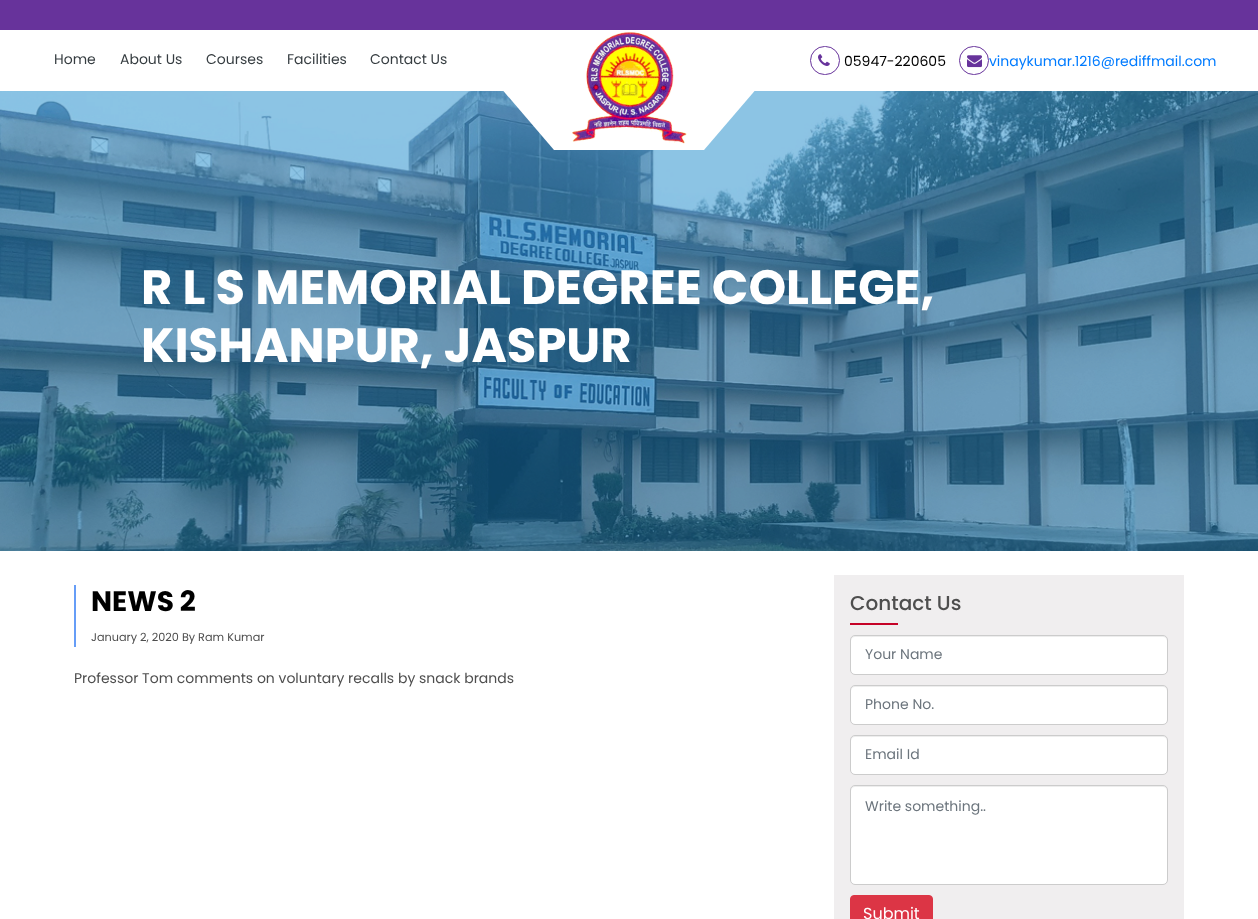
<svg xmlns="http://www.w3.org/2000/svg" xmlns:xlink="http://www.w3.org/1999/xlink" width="1258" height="919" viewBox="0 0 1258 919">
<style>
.cls-1{font:14px Poppins;fill:#363d41}
.cls-2{font:14px Poppins;fill:#000000}
.cls-3{font:14px Poppins;fill:#007bff}
.cls-4{font:bold 48px Poppins;fill:#ffffff}
.cls-5{font:bold 28px Poppins;fill:#000000}
.cls-6{font:11.25px Poppins;fill:#4e4e4e}
.cls-7{font:14px Poppins;fill:#4e4e4e}
.cls-8{font:500 20px Poppins;fill:#4e4e4e}
.cls-9{font:14px Poppins;fill:#6c757d}
.cls-10{font:16px Poppins;fill:#ffffff}
</style>
<rect width="100%" height="100%" fill="#ffffff"/>
<rect fill="#67339b" x="0" y="0" width="1258" height="30"/>
<image xlink:href="image3.png" x="0" y="91" width="1258" height="460"/>
<path fill="#ffffff" d="M464 45H794L704 150H554Z"/>
<image xlink:href="image0.png" x="572" y="31" width="115" height="113"/>
<rect fill="none" stroke="#67339b" x="810.5" y="46.5" width="29" height="28" rx="14"/>
<image xlink:href="image1.png" x="818" y="54" width="12" height="12"/>
<rect fill="none" stroke="#67339b" x="959.5" y="46.5" width="29" height="28" rx="14"/>
<image xlink:href="image2.png" x="967" y="55" width="15" height="13"/>
<rect fill="#669df7" x="74" y="585" width="2" height="62"/>
<rect fill="#f0eeef" x="834" y="575" width="350" height="344"/>
<rect fill="#c50227" x="850" y="623" width="48" height="2"/>
<rect fill="#ffffff" x="851" y="636" width="316" height="38" rx="4"/>
<path fill="#000000" fill-opacity="0.07" d="M855 637H1163C1165 637 1167 639 1167 641V640C1167 638 1165 636 1163 636H855C853 636 851 638 851 640V641C851 639 853 637 855 637Z"/>
<rect fill="none" stroke="#cccccc" x="850.5" y="635.5" width="317" height="39" rx="4.5"/>
<rect fill="#ffffff" x="851" y="686" width="316" height="38" rx="4"/>
<path fill="#000000" fill-opacity="0.07" d="M855 687H1163C1165 687 1167 689 1167 691V690C1167 688 1165 686 1163 686H855C853 686 851 688 851 690V691C851 689 853 687 855 687Z"/>
<rect fill="none" stroke="#cccccc" x="850.5" y="685.5" width="317" height="39" rx="4.5"/>
<rect fill="#ffffff" x="851" y="736" width="316" height="38" rx="4"/>
<path fill="#000000" fill-opacity="0.07" d="M855 737H1163C1165 737 1167 739 1167 741V740C1167 738 1165 736 1163 736H855C853 736 851 738 851 740V741C851 739 853 737 855 737Z"/>
<rect fill="none" stroke="#cccccc" x="850.5" y="735.5" width="317" height="39" rx="4.5"/>
<rect fill="#ffffff" x="851" y="786" width="316" height="98" rx="4"/>
<path fill="#000000" fill-opacity="0.07" d="M855 787H1163C1165 787 1167 789 1167 791V790C1167 788 1165 786 1163 786H855C853 786 851 788 851 790V791C851 789 853 787 855 787Z"/>
<rect fill="none" stroke="#cccccc" x="850.5" y="785.5" width="317" height="99" rx="4.5"/>
<rect fill="#dc3545" stroke="#dc3545" x="850.5" y="895.5" width="82" height="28" rx="3.5"/>
<text class="cls-1" x="54" y="64">Home</text>
<text class="cls-1" x="120" y="64">About Us</text>
<text class="cls-1" x="206" y="64">Courses</text>
<text class="cls-1" x="287" y="64">Facilities</text>
<text class="cls-1" x="370" y="64">Contact Us</text>
<text class="cls-2" x="844" y="66">05947-220605</text>
<text class="cls-3" x="989" y="66">vinaykumar.1216@rediffmail.com</text>
<text class="cls-4"><tspan x="141" y="304">R L S MEMORIAL DEGREE COLLEGE,</tspan><tspan x="141" y="362">KISHANPUR, JASPUR</tspan></text>
<text class="cls-5" x="91" y="611">NEWS 2</text>
<text class="cls-6" x="91" y="641">January 2, 2020 By Ram Kumar</text>
<text class="cls-7" x="74" y="683">Professor Tom comments on voluntary recalls by snack brands</text>
<text class="cls-8" x="850" y="610">Contact Us</text>
<text class="cls-9" x="865" y="659">Your Name</text>
<text class="cls-9" x="865" y="709">Phone No.</text>
<text class="cls-9" x="865" y="759">Email Id</text>
<text class="cls-9" x="865" y="811">Write something..</text>
<text class="cls-10" x="863" y="919">Submit</text>
</svg>
